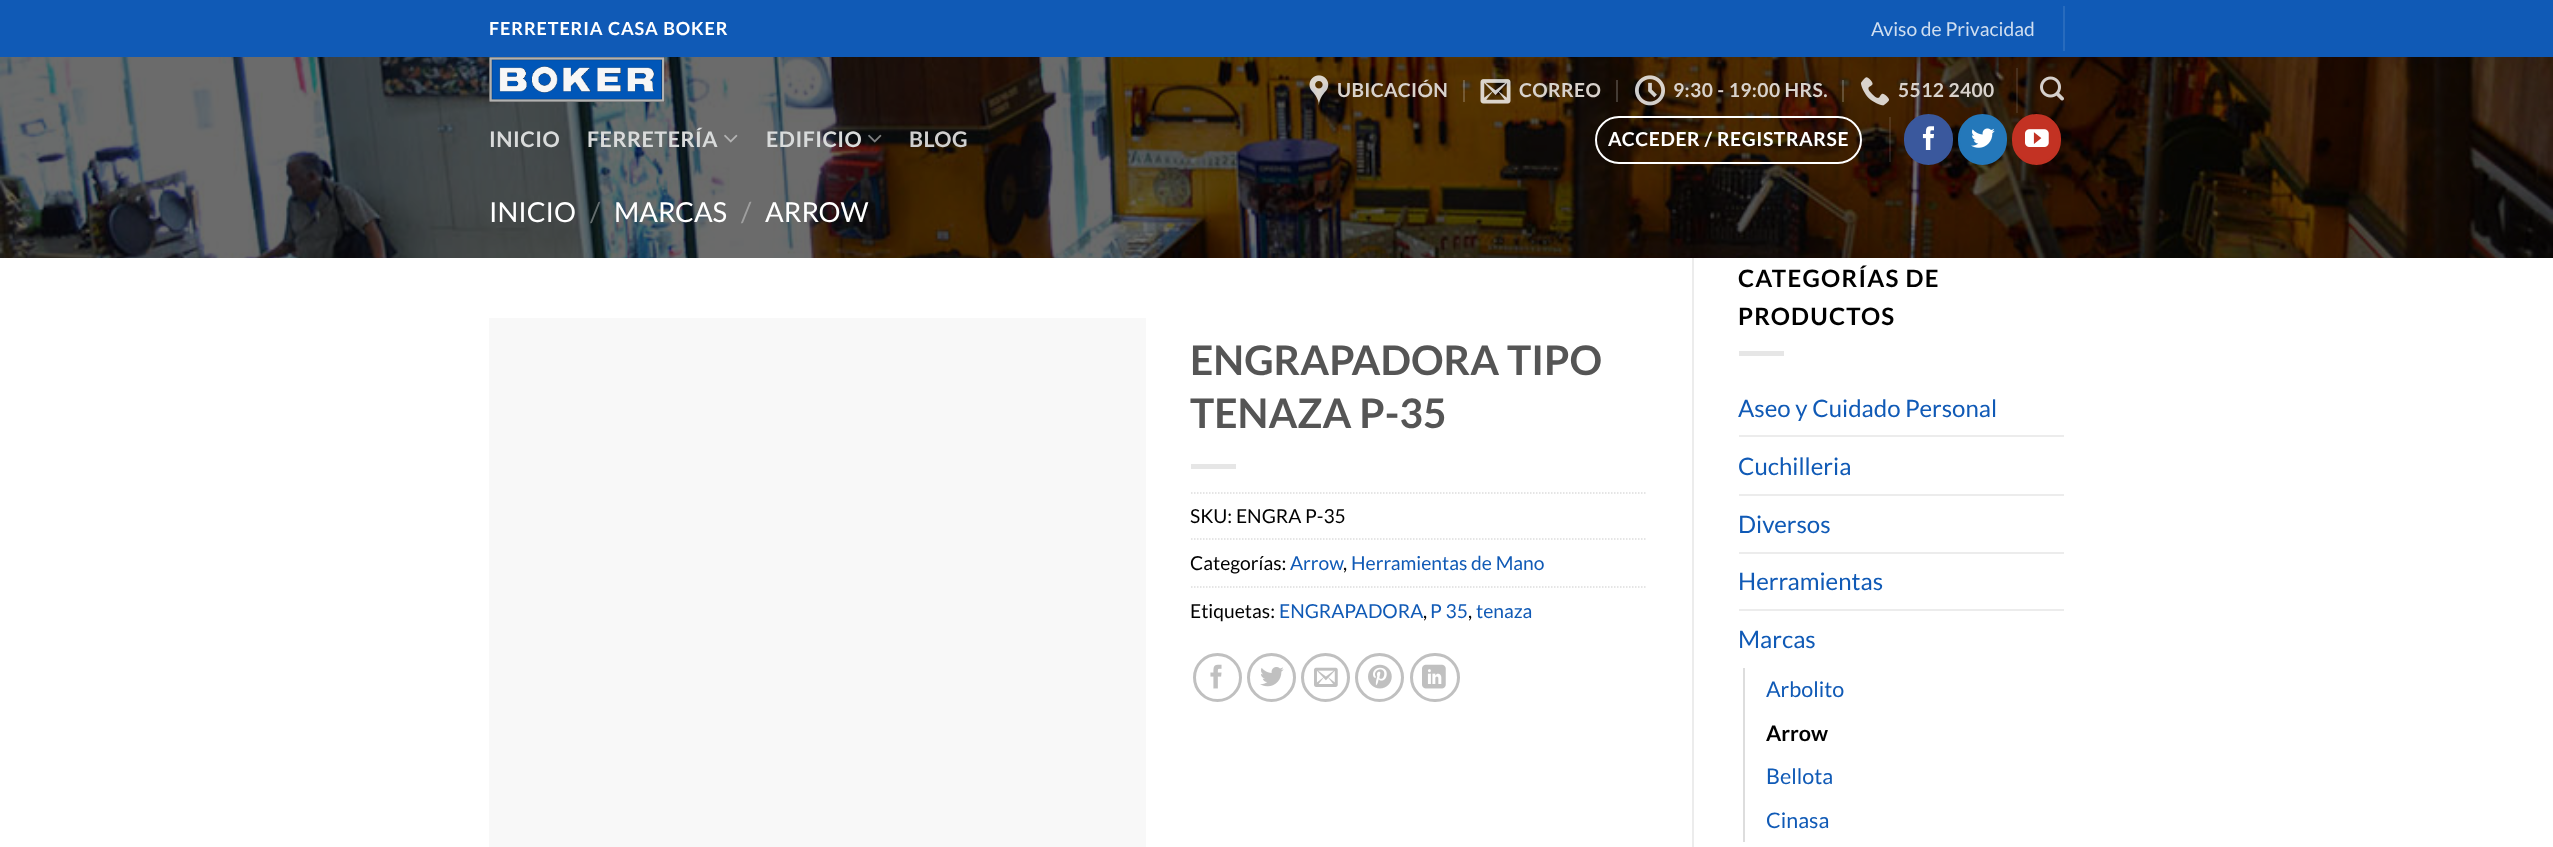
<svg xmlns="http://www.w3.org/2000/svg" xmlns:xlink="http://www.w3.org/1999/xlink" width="2553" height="847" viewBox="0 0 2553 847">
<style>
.cls-1{font:bold 18px Lato;letter-spacing:0.9px;fill:#ffffff}
.cls-2{font:19.25px Lato;fill:#cfdef0}
.cls-3{font:bold 19.25px Lato;letter-spacing:0.4px;fill:#d8d2cc}
.cls-4{font:bold 21.5px Lato;letter-spacing:0.5px;fill:#d9dbdb}
.cls-5{font:bold 21.5px Lato;letter-spacing:0.5px;fill:#d0cfce}
.cls-6{font:bold 19.25px Lato;letter-spacing:0.6px;fill:#ffffff}
.cls-7{font:27.5px Lato;fill:#ffffff}
.cls-8{font:27.5px Lato;fill:#646d6e}
.cls-9{font:27.5px Lato;fill:#9f9f9f}
.cls-10{font:bold 40.75px Lato;fill:#555555}
.cls-11{font:19.25px Lato;fill:#000000}
.cls-12{font:19.25px Lato;fill:#105ab6}
.cls-13{font:bold 24px Lato;letter-spacing:1.25px;fill:#000000}
.cls-14{font:24px Lato;fill:#105ab6}
.cls-15{font:21.5px Lato;fill:#105ab6}
.cls-16{font:bold 21.5px Lato;fill:#000000}
</style>
<rect width="100%" height="100%" fill="#ffffff"/>
<rect fill="#105ab6" x="0" y="0" width="2553" height="57"/>
<rect fill="#286bbd" x="2063" y="6" width="2" height="45"/>
<image xlink:href="image11.png" x="0" y="57" width="2553" height="201"/>
<image xlink:href="image0.png" x="489" y="57" width="176" height="45"/>
<image xlink:href="image1.png" x="1309" y="75" width="20" height="30"/>
<rect fill="#ffffff" fill-opacity="0.2" x="1463" y="80" width="2" height="22"/>
<image xlink:href="image2.png" x="1480" y="79" width="31" height="25"/>
<rect fill="#ffffff" fill-opacity="0.2" x="1616" y="80" width="2" height="22"/>
<image xlink:href="image3.png" x="1635" y="75" width="30" height="31"/>
<rect fill="#ffffff" fill-opacity="0.2" x="1842" y="80" width="2" height="22"/>
<image xlink:href="image4.png" x="1861" y="77" width="28" height="29"/>
<rect fill="#ffffff" fill-opacity="0.1" x="2016" y="68" width="2" height="45"/>
<image xlink:href="image5.png" x="2040" y="76" width="24" height="25"/>
<image xlink:href="image6.png" x="724" y="134" width="14" height="9"/>
<image xlink:href="image7.png" x="868" y="134" width="14" height="9"/>
<rect fill="none" stroke="#ffffff" stroke-width="2" x="1596" y="117" width="265" height="46" rx="23"/>
<rect fill="#ffffff" fill-opacity="0.1" x="1889" y="117" width="2" height="45"/>
<rect fill="#3a589d" stroke="#3a589d" stroke-width="2" x="1905" y="115" width="47" height="49" rx="23.5"/>
<image xlink:href="image8.png" x="1922" y="126" width="12" height="24"/>
<rect fill="#2478ba" stroke="#2478ba" stroke-width="2" x="1959" y="115" width="47" height="49" rx="23.5"/>
<image xlink:href="image9.png" x="1971" y="128" width="24" height="20"/>
<rect fill="#c33223" stroke="#c33223" stroke-width="2" x="2013" y="115" width="47" height="49" rx="23.5"/>
<image xlink:href="image10.png" x="2025" y="129" width="24" height="18"/>
<rect fill="#ececec" x="1692" y="258" width="2" height="589"/>
<rect fill="#f8f8f8" x="489" y="318" width="657" height="529"/>
<rect fill="#e6e6e6" x="1191" y="464" width="45" height="5"/>
<path fill="none" stroke="#dddddd" stroke-width="1.5" stroke-dasharray="1.5 1.5" d="M1191 493H1647"/>
<path fill="none" stroke="#dddddd" stroke-width="1.5" stroke-dasharray="1.5 1.5" d="M1191 539H1647"/>
<path fill="none" stroke="#dddddd" stroke-width="1.5" stroke-dasharray="1.5 1.5" d="M1191 587H1647"/>
<circle fill="none" stroke="#c0c0c0" stroke-width="3" cx="1217.5" cy="677.5" r="23"/>
<image xlink:href="image12.png" x="1210" y="664" width="12" height="25"/>
<circle fill="none" stroke="#c0c0c0" stroke-width="3" cx="1271.5" cy="677.5" r="23"/>
<image xlink:href="image13.png" x="1260" y="667" width="24" height="20"/>
<circle fill="none" stroke="#c0c0c0" stroke-width="3" cx="1325.5" cy="677.5" r="23"/>
<image xlink:href="image14.png" x="1314" y="667" width="24" height="20"/>
<circle fill="none" stroke="#c0c0c0" stroke-width="3" cx="1379.5" cy="677.5" r="23"/>
<image xlink:href="image15.png" x="1368" y="664" width="24" height="25"/>
<rect fill="none" stroke="#c0c0c0" stroke-width="3" x="1411.5" y="654.5" width="47" height="46" rx="23"/>
<image xlink:href="image16.png" x="1422" y="664" width="24" height="25"/>
<rect fill="#e6e6e6" x="1739" y="351" width="45" height="5"/>
<rect fill="#ececec" x="1739" y="435" width="325" height="2"/>
<rect fill="#ececec" x="1739" y="494" width="325" height="2"/>
<rect fill="#ececec" x="1739" y="552" width="325" height="2"/>
<rect fill="#ececec" x="1739" y="609" width="325" height="2"/>
<rect fill="#dddddd" x="1743" y="668" width="2" height="174"/>
<text class="cls-1" x="489" y="35">FERRETERIA CASA BOKER</text>
<text class="cls-2" x="1871" y="36">Aviso de Privacidad</text>
<text class="cls-3" x="1337" y="97">UBICACIÓN</text>
<text class="cls-3" x="1519" y="97">CORREO</text>
<text class="cls-3" x="1673" y="97">9:30 - 19:00 HRS.</text>
<text class="cls-3" x="1898" y="97">5512 2400</text>
<text class="cls-4" x="489" y="147">INICIO</text>
<text class="cls-4" x="587" y="147">FERRETERÍA</text>
<text class="cls-4" x="766" y="147">EDIFICIO</text>
<text class="cls-5" x="909" y="147">BLOG</text>
<text class="cls-6" x="1608" y="146">ACCEDER / REGISTRARSE</text>
<text class="cls-7" x="489" y="222">INICIO</text>
<text class="cls-8" x="590" y="222">/</text>
<text class="cls-7" x="614" y="222">MARCAS</text>
<text class="cls-9" x="741" y="222">/</text>
<text class="cls-7" x="765" y="222">ARROW</text>
<text class="cls-10"><tspan x="1190" y="375">ENGRAPADORA TIPO</tspan><tspan x="1190" y="428">TENAZA P-35</tspan></text>
<text class="cls-11" x="1190" y="523">SKU: ENGRA P-35</text>
<text class="cls-11" x="1190" y="570">Categorías:</text>
<text class="cls-12" x="1290" y="570">Arrow</text>
<text class="cls-11" x="1343" y="570">,</text>
<text class="cls-12" x="1351" y="570">Herramientas de Mano</text>
<text class="cls-11" x="1190" y="618">Etiquetas:</text>
<text class="cls-12" x="1279" y="618">ENGRAPADORA</text>
<text class="cls-11" x="1423" y="618">,</text>
<text class="cls-12" x="1430" y="618">P 35</text>
<text class="cls-11" x="1468" y="618">,</text>
<text class="cls-12" x="1476" y="618">tenaza</text>
<text class="cls-13"><tspan x="1738" y="287">CATEGORÍAS DE</tspan><tspan x="1738" y="325">PRODUCTOS</tspan></text>
<text class="cls-14" x="1738" y="417">Aseo y Cuidado Personal</text>
<text class="cls-14" x="1738" y="475">Cuchilleria</text>
<text class="cls-14" x="1738" y="533">Diversos</text>
<text class="cls-14" x="1738" y="590">Herramientas</text>
<text class="cls-14" x="1738" y="648">Marcas</text>
<text class="cls-15" x="1766" y="697">Arbolito</text>
<text class="cls-16" x="1766" y="741">Arrow</text>
<text class="cls-15" x="1766" y="784">Bellota</text>
<text class="cls-15" x="1766" y="828">Cinasa</text>
</svg>
